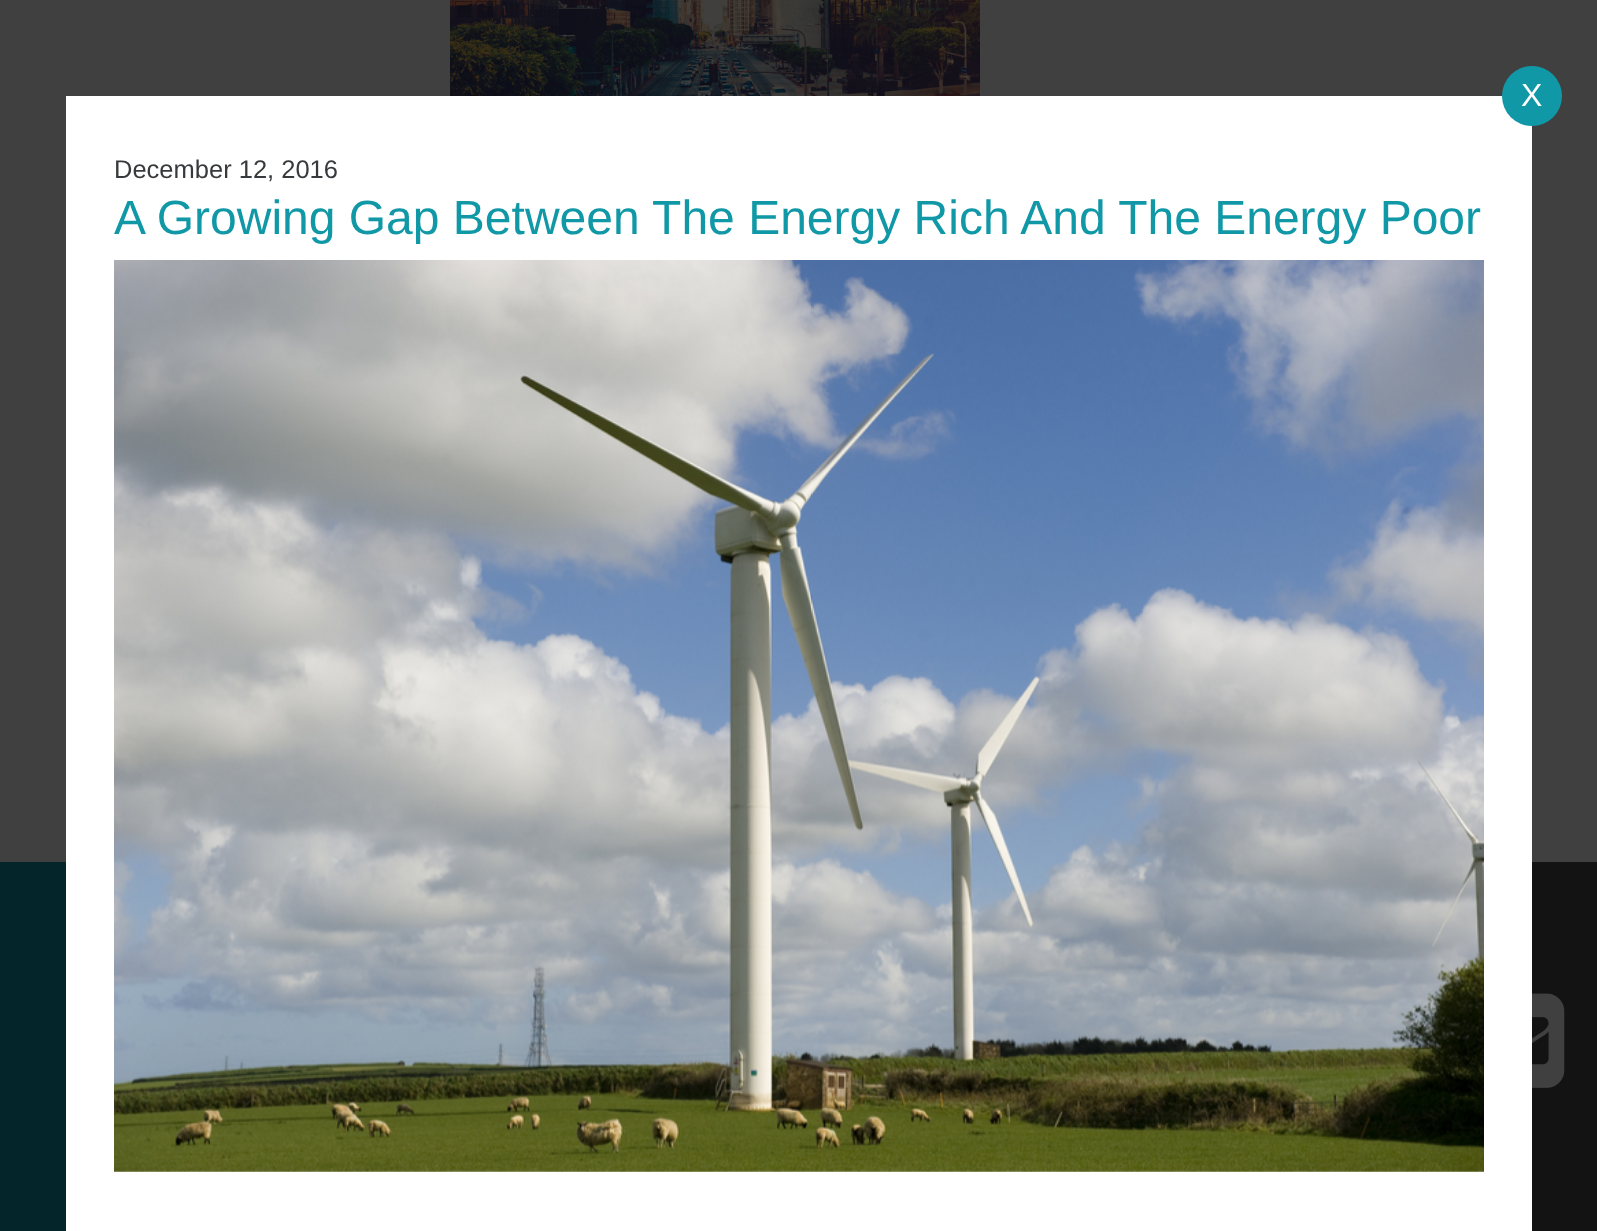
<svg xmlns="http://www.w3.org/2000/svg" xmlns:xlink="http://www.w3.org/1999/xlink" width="1597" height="1231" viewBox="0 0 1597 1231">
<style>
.cls-1{font:32px Liberation Sans;fill:#ffffff}
.cls-2{font:25.5px Liberation Sans;fill:#373a3c}
.cls-3{font:48px Liberation Sans;fill:#1198a7}
</style>
<rect width="100%" height="100%" fill="#404040"/>
<image xlink:href="image0.png" x="450" y="0" width="530" height="96"/>
<rect fill="#ffffff" x="66" y="96" width="1466" height="1135"/>
<circle fill="#1198a7" cx="1532" cy="96" r="30"/>
<image xlink:href="image1.png" x="114" y="260" width="1370" height="912"/>
<rect fill="#131314" x="1532" y="862" width="65" height="369"/>
<rect fill="#04262a" x="0" y="862" width="66" height="369"/>
<image xlink:href="image2.png" x="1532" y="993" width="33" height="95"/>
<text class="cls-1" x="1521" y="106">X</text>
<text class="cls-2" x="114" y="178">December 12, 2016</text>
<text class="cls-3" x="114" y="234">A Growing Gap Between The Energy Rich And The Energy Poor</text>
</svg>
